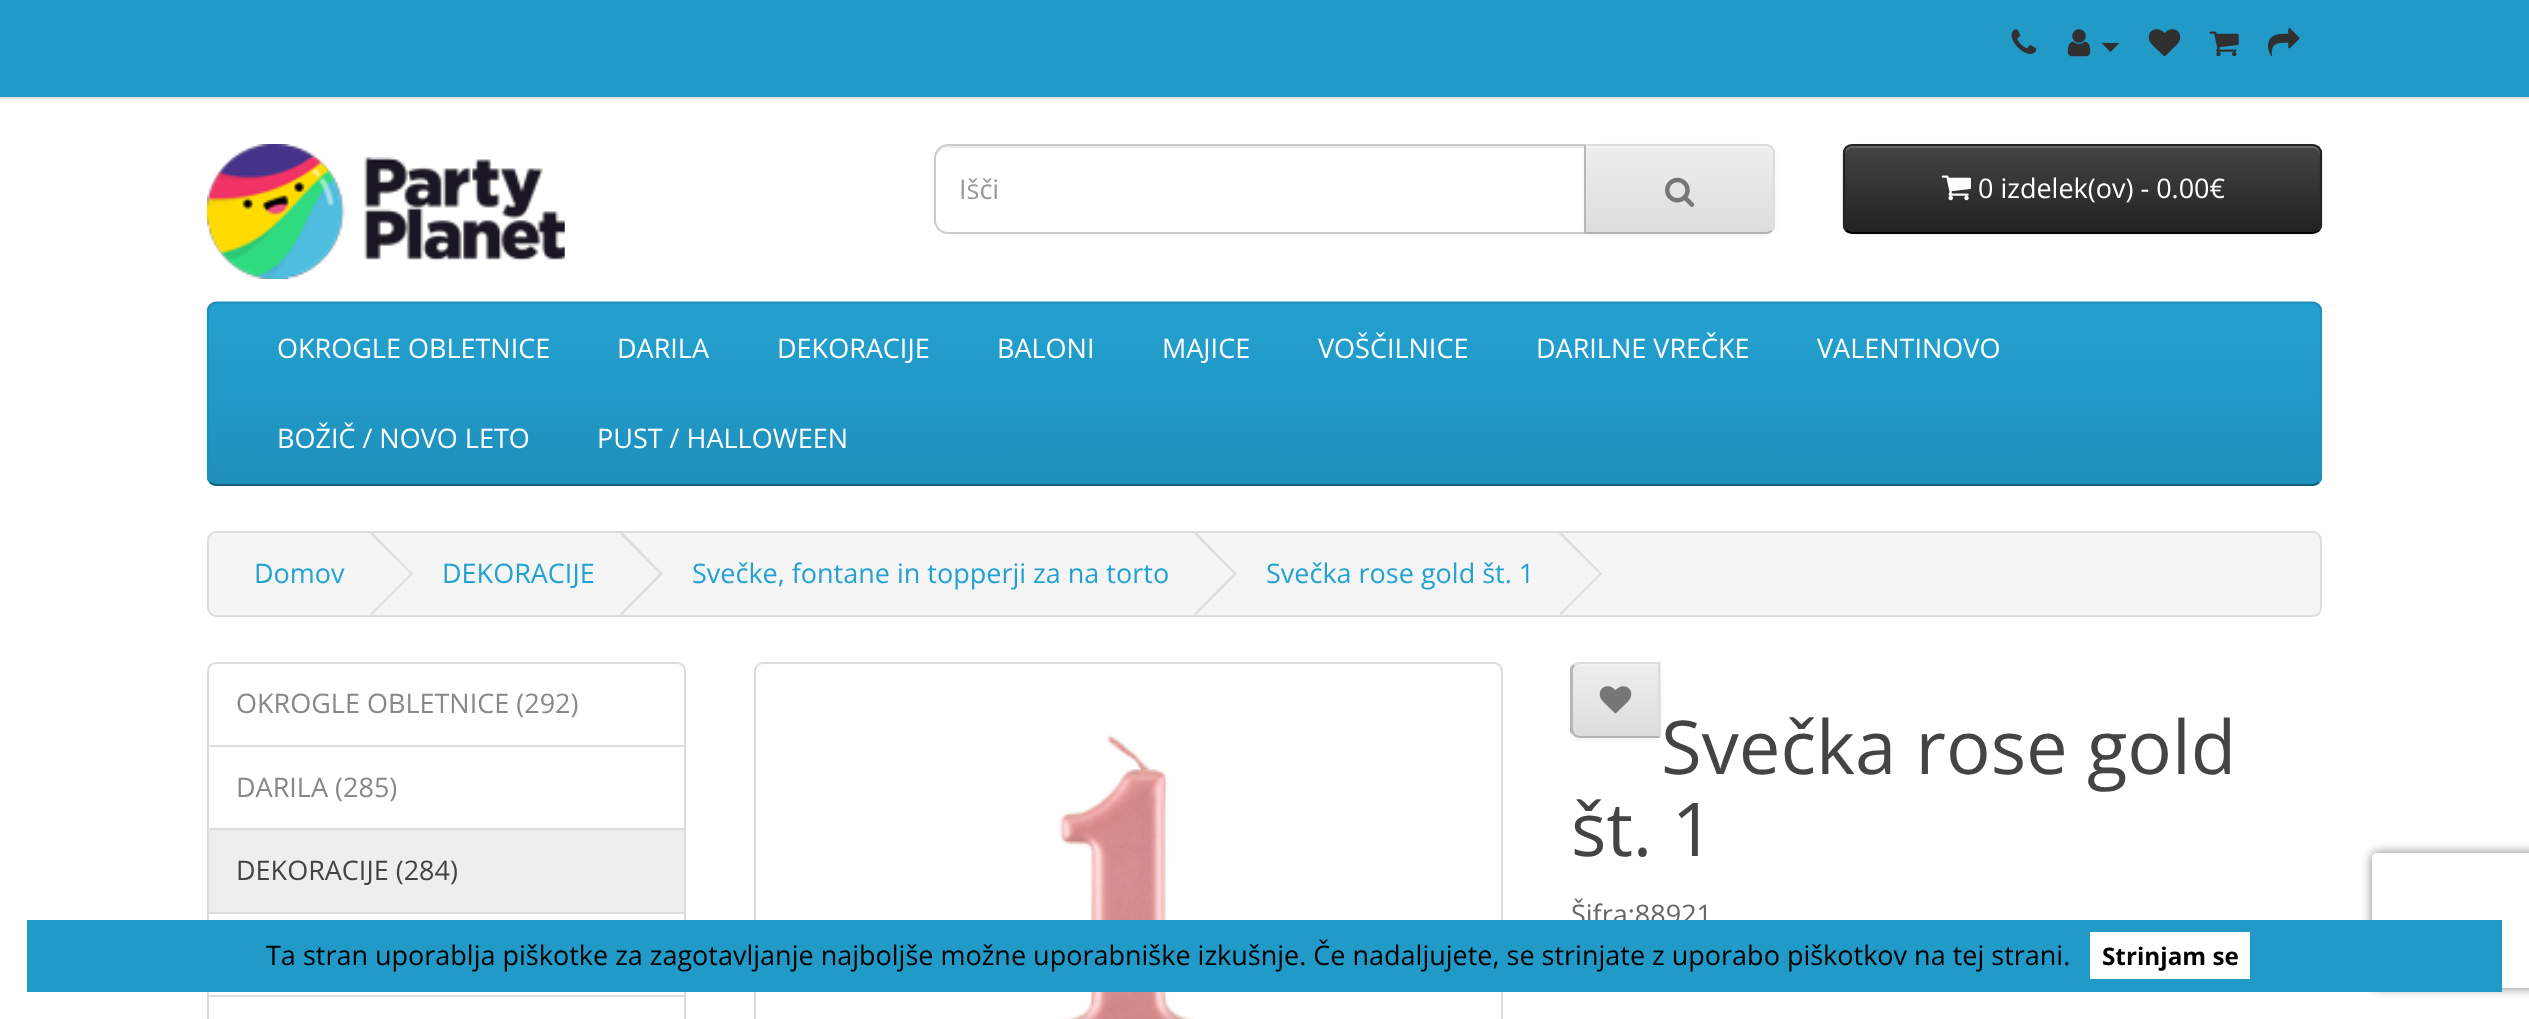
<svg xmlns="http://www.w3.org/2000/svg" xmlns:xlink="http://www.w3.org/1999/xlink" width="2529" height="1019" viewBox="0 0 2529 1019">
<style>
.cls-1{font:27px Open Sans;fill:#999999}
.cls-2{font:27px Open Sans;fill:#ffffff}
.cls-3{font:27px Open Sans;fill:#23a1d1}
.cls-4{font:27px Open Sans;fill:#888888}
.cls-5{font:27px Open Sans;fill:#444444}
.cls-6{font:74.25px Open Sans;fill:#444444}
.cls-7{font:27px Open Sans;fill:#666666}
.cls-8{font:27px Open Sans;fill:#000000}
.cls-9{font:bold 24.25px Open Sans;fill:#000000}
</style>
<defs>
<clipPath id="clip1"><path d="M1584 144H1766C1771 144 1775 148 1775 153V225C1775 230 1771 234 1766 234H1584Z"/></clipPath>
<linearGradient id="g1" gradientUnits="userSpaceOnUse" x1="1680" y1="146" x2="1680" y2="232"><stop offset="0" stop-color="#eeeeee"/><stop offset="1" stop-color="#dddddd"/></linearGradient>
<clipPath id="clip2"><rect x="1843" y="144" width="479" height="90" rx="9"/></clipPath>
<linearGradient id="g2" gradientUnits="userSpaceOnUse" x1="2082" y1="146" x2="2082" y2="232"><stop offset="0" stop-color="#444444"/><stop offset="1" stop-color="#222222"/></linearGradient>
<clipPath id="clip3"><rect x="207" y="302" width="2115" height="184" rx="9"/></clipPath>
<linearGradient id="g3" gradientUnits="userSpaceOnUse" x1="1265" y1="304" x2="1265" y2="484"><stop offset="0" stop-color="#23a1d1"/><stop offset="1" stop-color="#1f90bb"/></linearGradient>
<clipPath id="clip4"><path d="M1580 662H1661V738H1580C1575 738 1571 734 1571 729V671C1571 666 1575 662 1580 662Z"/></clipPath>
<linearGradient id="g4" gradientUnits="userSpaceOnUse" x1="1616" y1="664" x2="1616" y2="736"><stop offset="0" stop-color="#eeeeee"/><stop offset="1" stop-color="#dddddd"/></linearGradient>
<clipPath id="clip5"><path d="M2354 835H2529V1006H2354ZM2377 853H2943C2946 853 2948 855 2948 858V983C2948 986 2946 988 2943 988H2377C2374 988 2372 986 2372 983V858C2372 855 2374 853 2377 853Z" clip-rule="evenodd"/></clipPath>
</defs>
<rect width="100%" height="100%" fill="#ffffff"/>
<rect fill="#229ac8" x="0" y="0" width="2529" height="97"/>
<rect fill="#e2e2e2" x="0" y="97" width="2529" height="2"/>
<image xlink:href="image0.png" x="2011" y="29" width="26" height="25"/>
<image xlink:href="image1.png" x="2067" y="29" width="24" height="28"/>
<path fill="#303030" d="M2101.5 43H2119.5L2110.5 52Z"/>
<image xlink:href="image2.png" x="2148" y="29" width="33" height="28"/>
<image xlink:href="image3.png" x="2209" y="31" width="30" height="26"/>
<image xlink:href="image4.png" x="2268" y="28" width="32" height="29"/>
<image xlink:href="image5.png" x="207" y="144" width="358" height="135"/>
<path fill="#ececec" d="M947 148H1584V146H947C939 146 936 153 936 160C936 154 941 148 947 148Z"/>
<path fill="none" stroke="#cccccc" stroke-width="2" d="M948 145H1585V233H948C941 233 935 227 935 220V158C935 151 941 145 948 145Z"/>
<rect fill="#000000" fill-opacity="0.05" filter="blur(2px)" x="1584" y="146" width="191" height="90" rx="9"/>
<g clip-path="url(#clip1)">
<rect fill="url(#g1)" x="1586" y="146" width="189" height="86"/>
</g>
<path fill="#f1f1f1" d="M1586 148H1766C1770 148 1773 152 1773 155V153C1773 149 1770 146 1766 146H1586Z"/>
<path fill="#dddddd" d="M1584 144L1586 146H1766C1768 146 1770 147 1771 148L1772 147C1771 145 1769 144 1766 144Z"/>
<path fill="#dddddd" d="M1772 147C1774 148 1775 151 1775 153V225C1775 227 1774 230 1772 231L1771 230C1772 229 1773 227 1773 225V153C1773 151 1772 149 1771 148Z"/>
<path fill="#b3b3b3" d="M1766 234C1769 234 1771 233 1772 231L1771 230C1770 231 1768 232 1766 232H1586L1584 234Z"/>
<path fill="#b7b7b7" d="M1584 144V234L1586 232V146Z"/>
<image xlink:href="image6.png" x="1665" y="177" width="30" height="30"/>
<rect fill="#000000" fill-opacity="0.05" filter="blur(2px)" x="1843" y="146" width="479" height="90" rx="9"/>
<g clip-path="url(#clip2)">
<rect fill="url(#g2)" x="1843" y="146" width="479" height="86"/>
</g>
<path fill="#ffffff" fill-opacity="0.2" d="M1852 148H2313C2317 148 2320 152 2320 155V153C2320 149 2317 146 2313 146H1852C1848 146 1845 149 1845 153V155C1845 152 1848 148 1852 148Z"/>
<path fill="none" stroke="#000000" stroke-width="2.2" d="M2318.5 230.5C2317 232 2315 233 2313 233H1852C1849.5 233 1847.5 232 1846 230.5"/>
<path fill="none" stroke="#222222" stroke-width="2.2" d="M1846 230.5C1844.5 229 1844 227 1844 225V153C1844 151 1844.5 149 1846 147.5C1847.5 146 1849.5 145 1852 145H2313C2315 145 2317 146 2318.5 147.5C2320 149 2321 151 2321 153V225C2321 227 2320 229 2318.5 230.5"/>
<image xlink:href="image7.png" x="1941" y="175" width="30" height="26"/>
<rect fill="#229ac8" x="207" y="302" width="2115" height="184" rx="9"/>
<g clip-path="url(#clip3)">
<rect fill="url(#g3)" x="207" y="304" width="2115" height="180"/>
</g>
<path fill="none" stroke="#145e7a" stroke-width="2.2" d="M2318.5 482.5C2317 484 2315 485 2313 485H216C214 485 212 484 210.5 482.5"/>
<path fill="none" stroke="#1f90bb" stroke-width="2.2" d="M210.5 482.5C209 481 208 479 208 477V310.5C208 308.5 209 306.5 210.5 305C212 303.5 214 302.5 216 302.5H2313C2315 302.5 2317 303.5 2318.5 305C2320 306.5 2321 308.5 2321 310.5V477C2321 479 2320 481 2318.5 482.5"/>
<rect fill="#f5f5f5" stroke="#dddddd" stroke-width="2" x="208" y="532" width="2113" height="84" rx="8"/>
<path fill="#dddddd" d="M370 534L372 532L413 574L412 575Z"/>
<path fill="#dddddd" d="M370 614L412 572L413 574L372 615Z"/>
<path fill="#dddddd" d="M620 534L622 532L663 574L661 575Z"/>
<path fill="#dddddd" d="M620 614L661 572L663 574L622 615Z"/>
<path fill="#dddddd" d="M1194 534L1196 532L1237 574L1235 575Z"/>
<path fill="#dddddd" d="M1194 614L1235 572L1237 574L1196 615Z"/>
<path fill="#dddddd" d="M1559 534L1561 532L1602 574L1601 575Z"/>
<path fill="#dddddd" d="M1559 614L1601 572L1602 574L1561 615Z"/>
<path fill="none" stroke="#dddddd" stroke-width="2" d="M216 663H677C681.5 663 685 666.5 685 671V746H208V671C208 666.5 211.5 663 216 663Z"/>
<rect fill="none" stroke="#dddddd" stroke-width="2" x="208" y="746" width="477" height="83"/>
<rect fill="none" stroke="#dddddd" stroke-width="2" x="208" y="912" width="477" height="84"/>
<rect fill="#eeeeee" stroke="#dddddd" stroke-width="2" x="208" y="829" width="477" height="84"/>
<rect fill="none" stroke="#dddddd" stroke-width="2" x="208" y="996" width="477" height="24"/>
<rect fill="none" stroke="#dddddd" stroke-width="2" x="755" y="663" width="747" height="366" rx="8"/>
<image xlink:href="image8.png" x="1059" y="735" width="137" height="284"/>
<rect fill="#000000" fill-opacity="0.05" filter="blur(2px)" x="1571" y="664" width="90" height="76" rx="9"/>
<path fill="#e7e7e7" d="M1580 662H1661V738H1580C1575 738 1571 734 1571 729V671C1571 666 1575 662 1580 662Z"/>
<g clip-path="url(#clip4)">
<rect fill="url(#g4)" x="1572" y="664" width="89" height="72"/>
</g>
<path fill="#f1f1f1" d="M1580 666H1658V664H1580C1576 664 1573 667 1573 671V673C1573 669 1576 666 1580 666Z"/>
<path fill="#dddddd" d="M1580 662C1578 662 1575 663 1573 664L1575 666C1576 665 1578 664 1580 664H1658L1660 662Z"/>
<path fill="#dddddd" d="M1660 738V662L1658 664V736Z"/>
<path fill="#b3b3b3" d="M1580 738H1660L1658 736H1580C1578 736 1576 735 1575 734L1573 735C1575 737 1578 738 1580 738Z"/>
<path fill="#b7b7b7" d="M1570 668L1573 664L1575 666L1573 669V719C1573 723 1572 730 1575 734L1573 735L1570 732Z"/>
<image xlink:href="image9.png" x="1599" y="686" width="33" height="28"/>
<g clip-path="url(#clip5)">
<rect fill="#808080" filter="blur(5.5px)" x="2372" y="853" width="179" height="135" rx="5"/>
</g>
<text class="cls-1" x="959" y="199">Išči</text>
<text class="cls-2" x="1978" y="198">0 izdelek(ov) - 0.00€</text>
<text class="cls-2" x="277" y="358">OKROGLE OBLETNICE</text>
<text class="cls-2" x="617" y="358">DARILA</text>
<text class="cls-2" x="777" y="358">DEKORACIJE</text>
<text class="cls-2" x="997" y="358">BALONI</text>
<text class="cls-2" x="1162" y="358">MAJICE</text>
<text class="cls-2" x="1318" y="358">VOŠČILNICE</text>
<text class="cls-2" x="1536" y="358">DARILNE VREČKE</text>
<text class="cls-2" x="1817" y="358">VALENTINOVO</text>
<text class="cls-2" x="277" y="448">BOŽIČ / NOVO LETO</text>
<text class="cls-2" x="597" y="448">PUST / HALLOWEEN</text>
<text class="cls-3" x="254" y="583">Domov</text>
<text class="cls-3" x="442" y="583">DEKORACIJE</text>
<text class="cls-3" x="692" y="583">Svečke, fontane in topperji za na torto</text>
<text class="cls-3" x="1266" y="583">Svečka rose gold št. 1</text>
<text class="cls-4" x="236" y="713">OKROGLE OBLETNICE (292)</text>
<text class="cls-4" x="236" y="797">DARILA (285)</text>
<text class="cls-5" x="236" y="880">DEKORACIJE (284)</text>
<text class="cls-6" x="1661" y="774">Svečka rose gold</text>
<text class="cls-6" x="1571" y="856">št. 1</text>
<text class="cls-7" x="1571" y="924">Šifra:88921</text>
<rect fill="#229ac8" x="27" y="920" width="2475" height="72"/>
<text class="cls-8" x="266" y="965">Ta stran uporablja piškotke za zagotavljanje najboljše možne uporabniške izkušnje. Če nadaljujete, se strinjate z uporabo piškotkov na tej strani.</text>
<rect fill="#ffffff" x="2090" y="932" width="160" height="47"/>
<text class="cls-9" x="2102" y="965">Strinjam se</text>
</svg>
